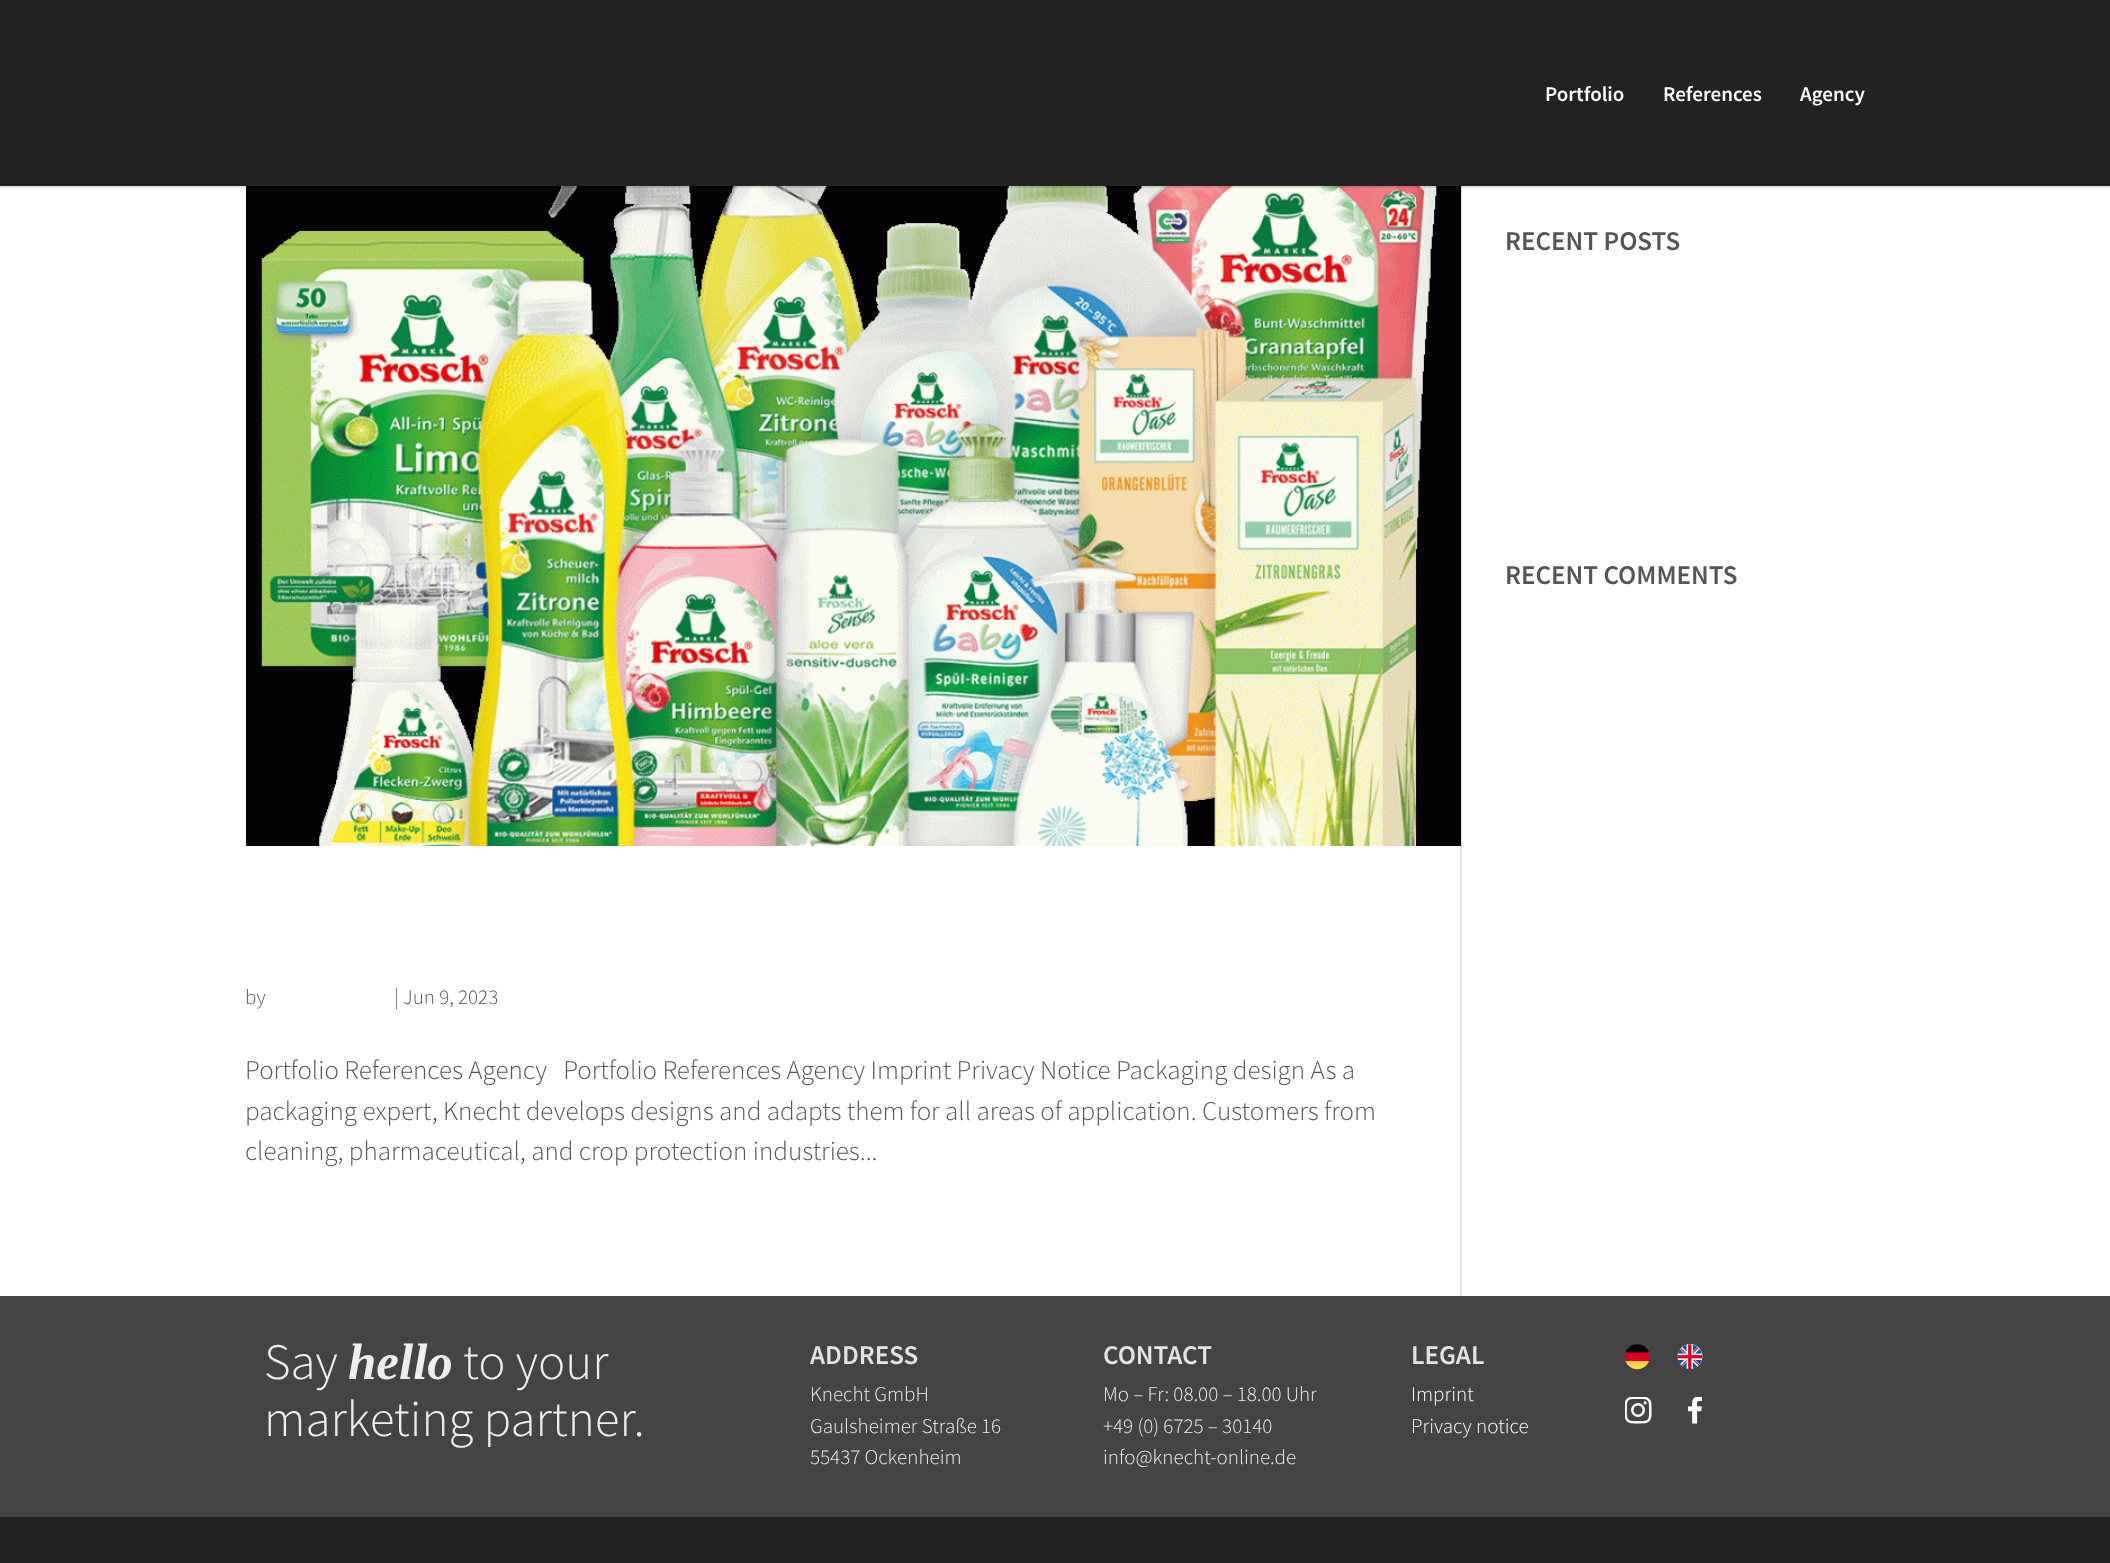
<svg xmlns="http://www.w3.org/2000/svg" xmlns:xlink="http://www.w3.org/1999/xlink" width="2110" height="1563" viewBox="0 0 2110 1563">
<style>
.cls-1{font:600 21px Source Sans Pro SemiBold;fill:#ffffff}
.cls-2{font:600 27px Source Sans Pro SemiBold;fill:#555555}
.cls-3{font:300 21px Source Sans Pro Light;fill:#555555}
.cls-4{font:300 27px Source Sans Pro Light;fill:#555555}
.cls-5{font:300 51px Source Sans Pro Light;fill:#eeeeee}
.cls-6{font:italic bold 51px Liberation Serif;fill:#eeeeee}
.cls-7{font:600 27px Source Sans Pro SemiBold;fill:#e3e3e3}
.cls-8{font:300 21px Source Sans Pro Light;fill:#eeeeee}
.cls-9{font:300 21px Source Sans Pro Light;fill:#ffffff}
</style>
<rect width="100%" height="100%" fill="#222222"/>
<rect fill="#ffffff" x="0" y="186" width="2110" height="1110"/>
<rect fill="#e2e2e2" x="1460" y="186" width="2" height="1110"/>
<image xlink:href="image0.png" x="246" y="186" width="1215" height="660"/>
<path fill="#000000" fill-opacity="0.1" d="M0 186V188H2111V2H2110V186Z"/>
<rect fill="#444444" x="0" y="1296" width="2110" height="221"/>
<image xlink:href="image1.png" x="1624" y="1344" width="26" height="26"/>
<image xlink:href="image2.png" x="1677" y="1344" width="26" height="26"/>
<image xlink:href="image3.png" x="1625" y="1397" width="27" height="27"/>
<image xlink:href="image4.png" x="1687" y="1397" width="15" height="27"/>
<text class="cls-1" x="1545" y="101">Portfolio</text>
<text class="cls-1" x="1663" y="101">References</text>
<text class="cls-1" x="1800" y="101">Agency</text>
<text class="cls-2" x="1505" y="250">RECENT POSTS</text>
<text class="cls-2" x="1505" y="584">RECENT COMMENTS</text>
<text class="cls-3" x="245" y="1004">by</text>
<text class="cls-3" x="394" y="1004">| Jun 9, 2023</text>
<text class="cls-4" xml:space="preserve"><tspan x="245" y="1079">Portfolio References Agency   Portfolio References Agency Imprint Privacy Notice Packaging design As a</tspan><tspan x="245" y="1120">packaging expert, Knecht develops designs and adapts them for all areas of application. Customers from</tspan><tspan x="245" y="1160">cleaning, pharmaceutical, and crop protection industries...</tspan></text>
<text class="cls-5" x="264" y="1379">Say</text>
<text class="cls-6" x="348" y="1379">hello</text>
<text class="cls-5" x="463" y="1379">to your</text>
<text class="cls-5" x="264" y="1436">marketing partner.</text>
<text class="cls-7" x="810" y="1364">ADDRESS</text>
<text class="cls-8"><tspan x="810" y="1401">Knecht GmbH</tspan><tspan x="810" y="1433">Gaulsheimer Straße 16</tspan><tspan x="810" y="1464">55437 Ockenheim</tspan></text>
<text class="cls-7" x="1103" y="1364">CONTACT</text>
<text class="cls-8"><tspan x="1103" y="1401">Mo – Fr: 08.00 – 18.00 Uhr</tspan><tspan x="1103" y="1433">+49 (0) 6725 – 30140</tspan><tspan x="1103" y="1464">info@knecht-online.de</tspan></text>
<text class="cls-7" x="1411" y="1364">LEGAL</text>
<text class="cls-9"><tspan x="1411" y="1401">Imprint</tspan><tspan x="1411" y="1433">Privacy notice</tspan></text>
</svg>
